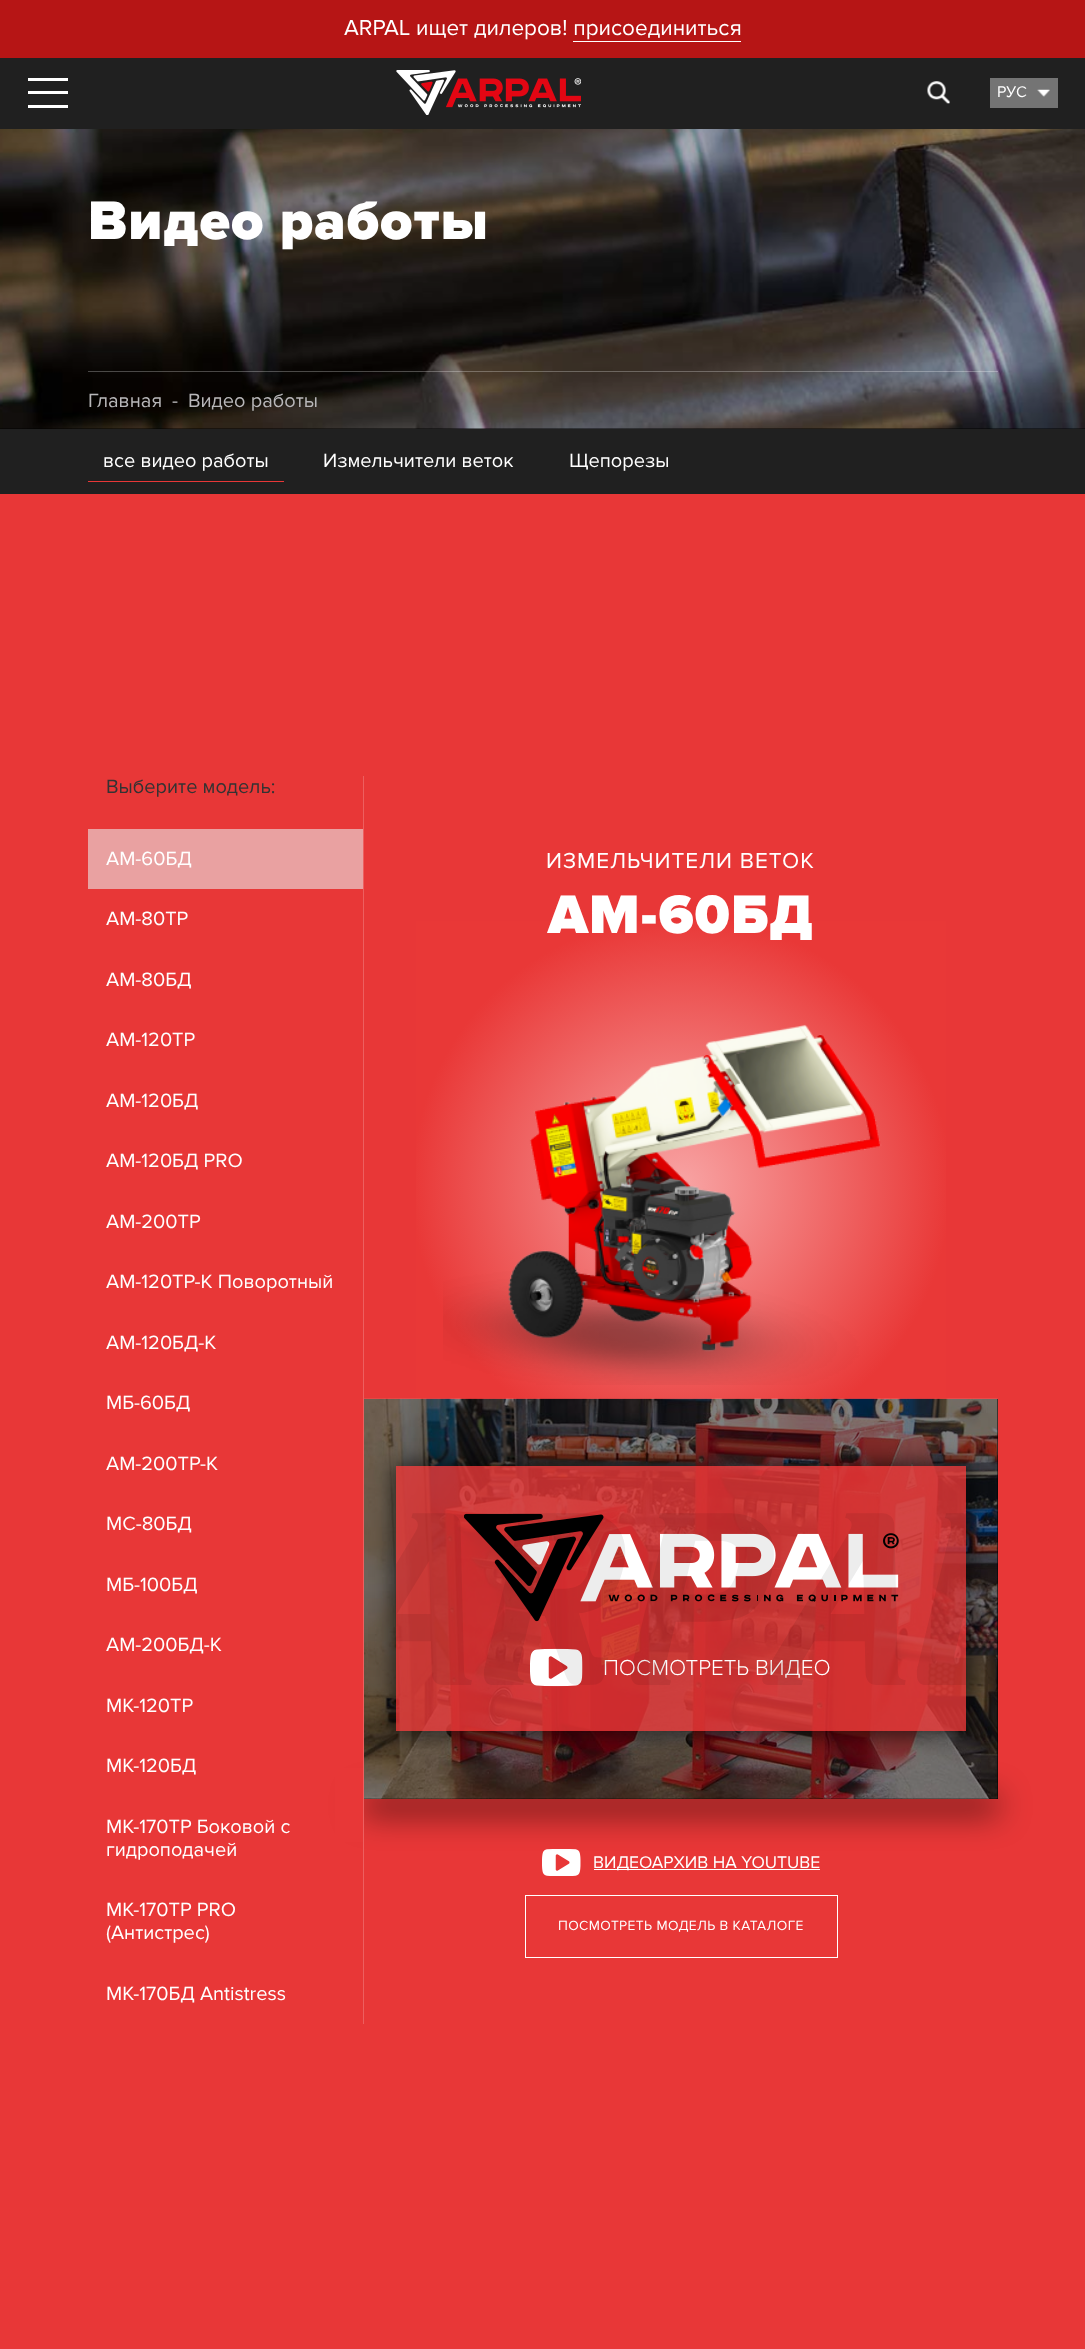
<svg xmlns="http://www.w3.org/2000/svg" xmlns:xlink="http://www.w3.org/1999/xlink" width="1085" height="2349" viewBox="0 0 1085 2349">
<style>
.cls-1{font:22.5px Proxima Nova;fill:#ffffff}
.cls-2{font:16px Proxima Nova;fill:#ffffff}
.cls-3{font:900 56.25px Proxima Nova;letter-spacing:1px;fill:#ffffff}
.cls-4{font:20px Proxima Nova;fill:#b8b7b9}
.cls-5{font:20px Proxima Nova;fill:#ffffff}
.cls-6{font:20px Proxima Nova;fill:#333333}
.cls-7{font:22.5px Proxima Nova;letter-spacing:1px;fill:#ffffff}
.cls-8{font:300 22.5px Proxima Nova;fill:#ffffff}
.cls-9{font:17.5px Proxima Nova;fill:#ffffff}
.cls-10{font:13.75px Proxima Nova;letter-spacing:0.4px;fill:#ffffff}
</style>
<defs>
<radialGradient id="g1" gradientUnits="userSpaceOnUse" cx="681" cy="1186" r="539"><stop offset="0" stop-color="#f8a4a4"/><stop offset="0.5" stop-color="#e93837"/></radialGradient>
<clipPath id="clip1"><path d="M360 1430H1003V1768H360ZM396 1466H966V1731H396Z" clip-rule="evenodd"/></clipPath>
</defs>
<rect width="100%" height="100%" fill="#202020"/>
<rect fill="#b61515" x="0" y="0" width="1085" height="58"/>
<rect fill="#ffffff" x="573" y="41" width="168" height="1"/>
<rect fill="#ffffff" x="28" y="78" width="40" height="3"/>
<rect fill="#ffffff" x="28" y="91" width="40" height="3"/>
<rect fill="#ffffff" x="28" y="105" width="40" height="3"/>
<image xlink:href="image0.png" x="396" y="70" width="185" height="45"/>
<image xlink:href="image1.png" x="927" y="81" width="23" height="23"/>
<rect fill="#747474" x="990" y="78" width="68" height="30"/>
<image xlink:href="image2.png" x="1037" y="89" width="13" height="8"/>
<rect fill="#000000" x="0" y="129" width="1085" height="300"/>
<image xlink:href="image3.png" x="0" y="129" width="1085" height="300"/>
<rect fill="#ffffff" fill-opacity="0.27" x="88" y="371" width="910" height="1"/>
<rect fill="#e83737" x="88" y="481" width="196" height="1"/>
<rect fill="#e83737" x="0" y="494" width="1085" height="1855"/>
<rect fill="url(#g1)" x="416" y="921" width="530" height="530"/>
<rect fill="#000000" x="364" y="1399" width="634" height="400"/>
<image xlink:href="image9.png" x="542" y="1849" width="39" height="27"/>
<rect fill="#000000" fill-opacity="0.6" filter="blur(16px)" x="361" y="1796" width="639" height="18" rx="9"/>
<rect fill="#e83737" x="335" y="1768" width="28" height="74"/>
<image xlink:href="image5.png" x="364" y="1398" width="634" height="401"/>
<g clip-path="url(#clip1)">
<rect fill="#010101" fill-opacity="0.7" filter="blur(11px)" x="394" y="1464" width="575" height="270"/>
</g>
<rect fill="#ed5f5f" x="363" y="776" width="1" height="1248"/>
<rect fill="#e9a1a1" x="88" y="829" width="275" height="60"/>
<image xlink:href="image4.png" x="443" y="1024" width="439" height="361"/>
<rect fill="#e83737" fill-opacity="0.8" x="396" y="1466" width="570" height="265"/>
<image xlink:href="image7.png" x="464" y="1513" width="435" height="109"/>
<image xlink:href="image8.png" x="530" y="1648" width="53" height="39"/>
<rect fill="#ffffff" x="594" y="1869" width="226" height="1"/>
<rect fill="none" stroke="#ffffff" x="525.5" y="1895.5" width="312" height="62"/>
<text class="cls-1" x="344" y="35">ARPAL ищет дилеров! присоединиться</text>
<text class="cls-2" x="997" y="97">РУС</text>
<text class="cls-3" x="88" y="239">Видео работы</text>
<text class="cls-4" x="88" y="407">Главная</text>
<text class="cls-4" x="172" y="407">-</text>
<text class="cls-4" x="188" y="407">Видео работы</text>
<text class="cls-5" x="103" y="467">все видео работы</text>
<text class="cls-5" x="323" y="467">Измельчители веток</text>
<text class="cls-5" x="569" y="467">Щепорезы</text>
<text class="cls-6" x="106" y="793">Выберите модель:</text>
<text class="cls-5" x="106" y="865">АМ-60БД</text>
<text class="cls-5" x="106" y="925">АМ-80ТР</text>
<text class="cls-5" x="106" y="986">АМ-80БД</text>
<text class="cls-5" x="106" y="1046">АМ-120ТР</text>
<text class="cls-5" x="106" y="1107">АМ-120БД</text>
<text class="cls-5" x="106" y="1167">АМ-120БД PRO</text>
<text class="cls-5" x="106" y="1228">АМ-200ТР</text>
<text class="cls-5" x="106" y="1288">АМ-120ТР-К Поворотный</text>
<text class="cls-5" x="106" y="1349">АМ-120БД-К</text>
<text class="cls-5" x="106" y="1409">МБ-60БД</text>
<text class="cls-5" x="106" y="1470">АМ-200ТР-К</text>
<text class="cls-5" x="106" y="1530">МС-80БД</text>
<text class="cls-5" x="106" y="1591">МБ-100БД</text>
<text class="cls-5" x="106" y="1651">АМ-200БД-К</text>
<text class="cls-5" x="106" y="1712">МК-120ТР</text>
<text class="cls-5" x="106" y="1772">МК-120БД</text>
<text class="cls-5"><tspan x="106" y="1833">МК-170ТР Боковой с</tspan><tspan x="106" y="1856">гидроподачей</tspan></text>
<text class="cls-5"><tspan x="106" y="1916">МК-170ТР PRO</tspan><tspan x="106" y="1939">(Антистрес)</tspan></text>
<text class="cls-5" x="106" y="2000">МК-170БД Antistress</text>
<text class="cls-7" x="546" y="868">ИЗМЕЛЬЧИТЕЛИ ВЕТОК</text>
<text class="cls-3" x="548" y="933">АМ-60БД</text>
<text class="cls-8" x="603" y="1675">ПОСМОТРЕТЬ ВИДЕО</text>
<image xlink:href="image6.png" x="396" y="1513" width="570" height="172"/>
<text class="cls-9" x="593" y="1868">ВИДЕОАРХИВ НА YOUTUBE</text>
<text class="cls-10" x="558" y="1930">ПОСМОТРЕТЬ МОДЕЛЬ В КАТАЛОГЕ</text>
</svg>
